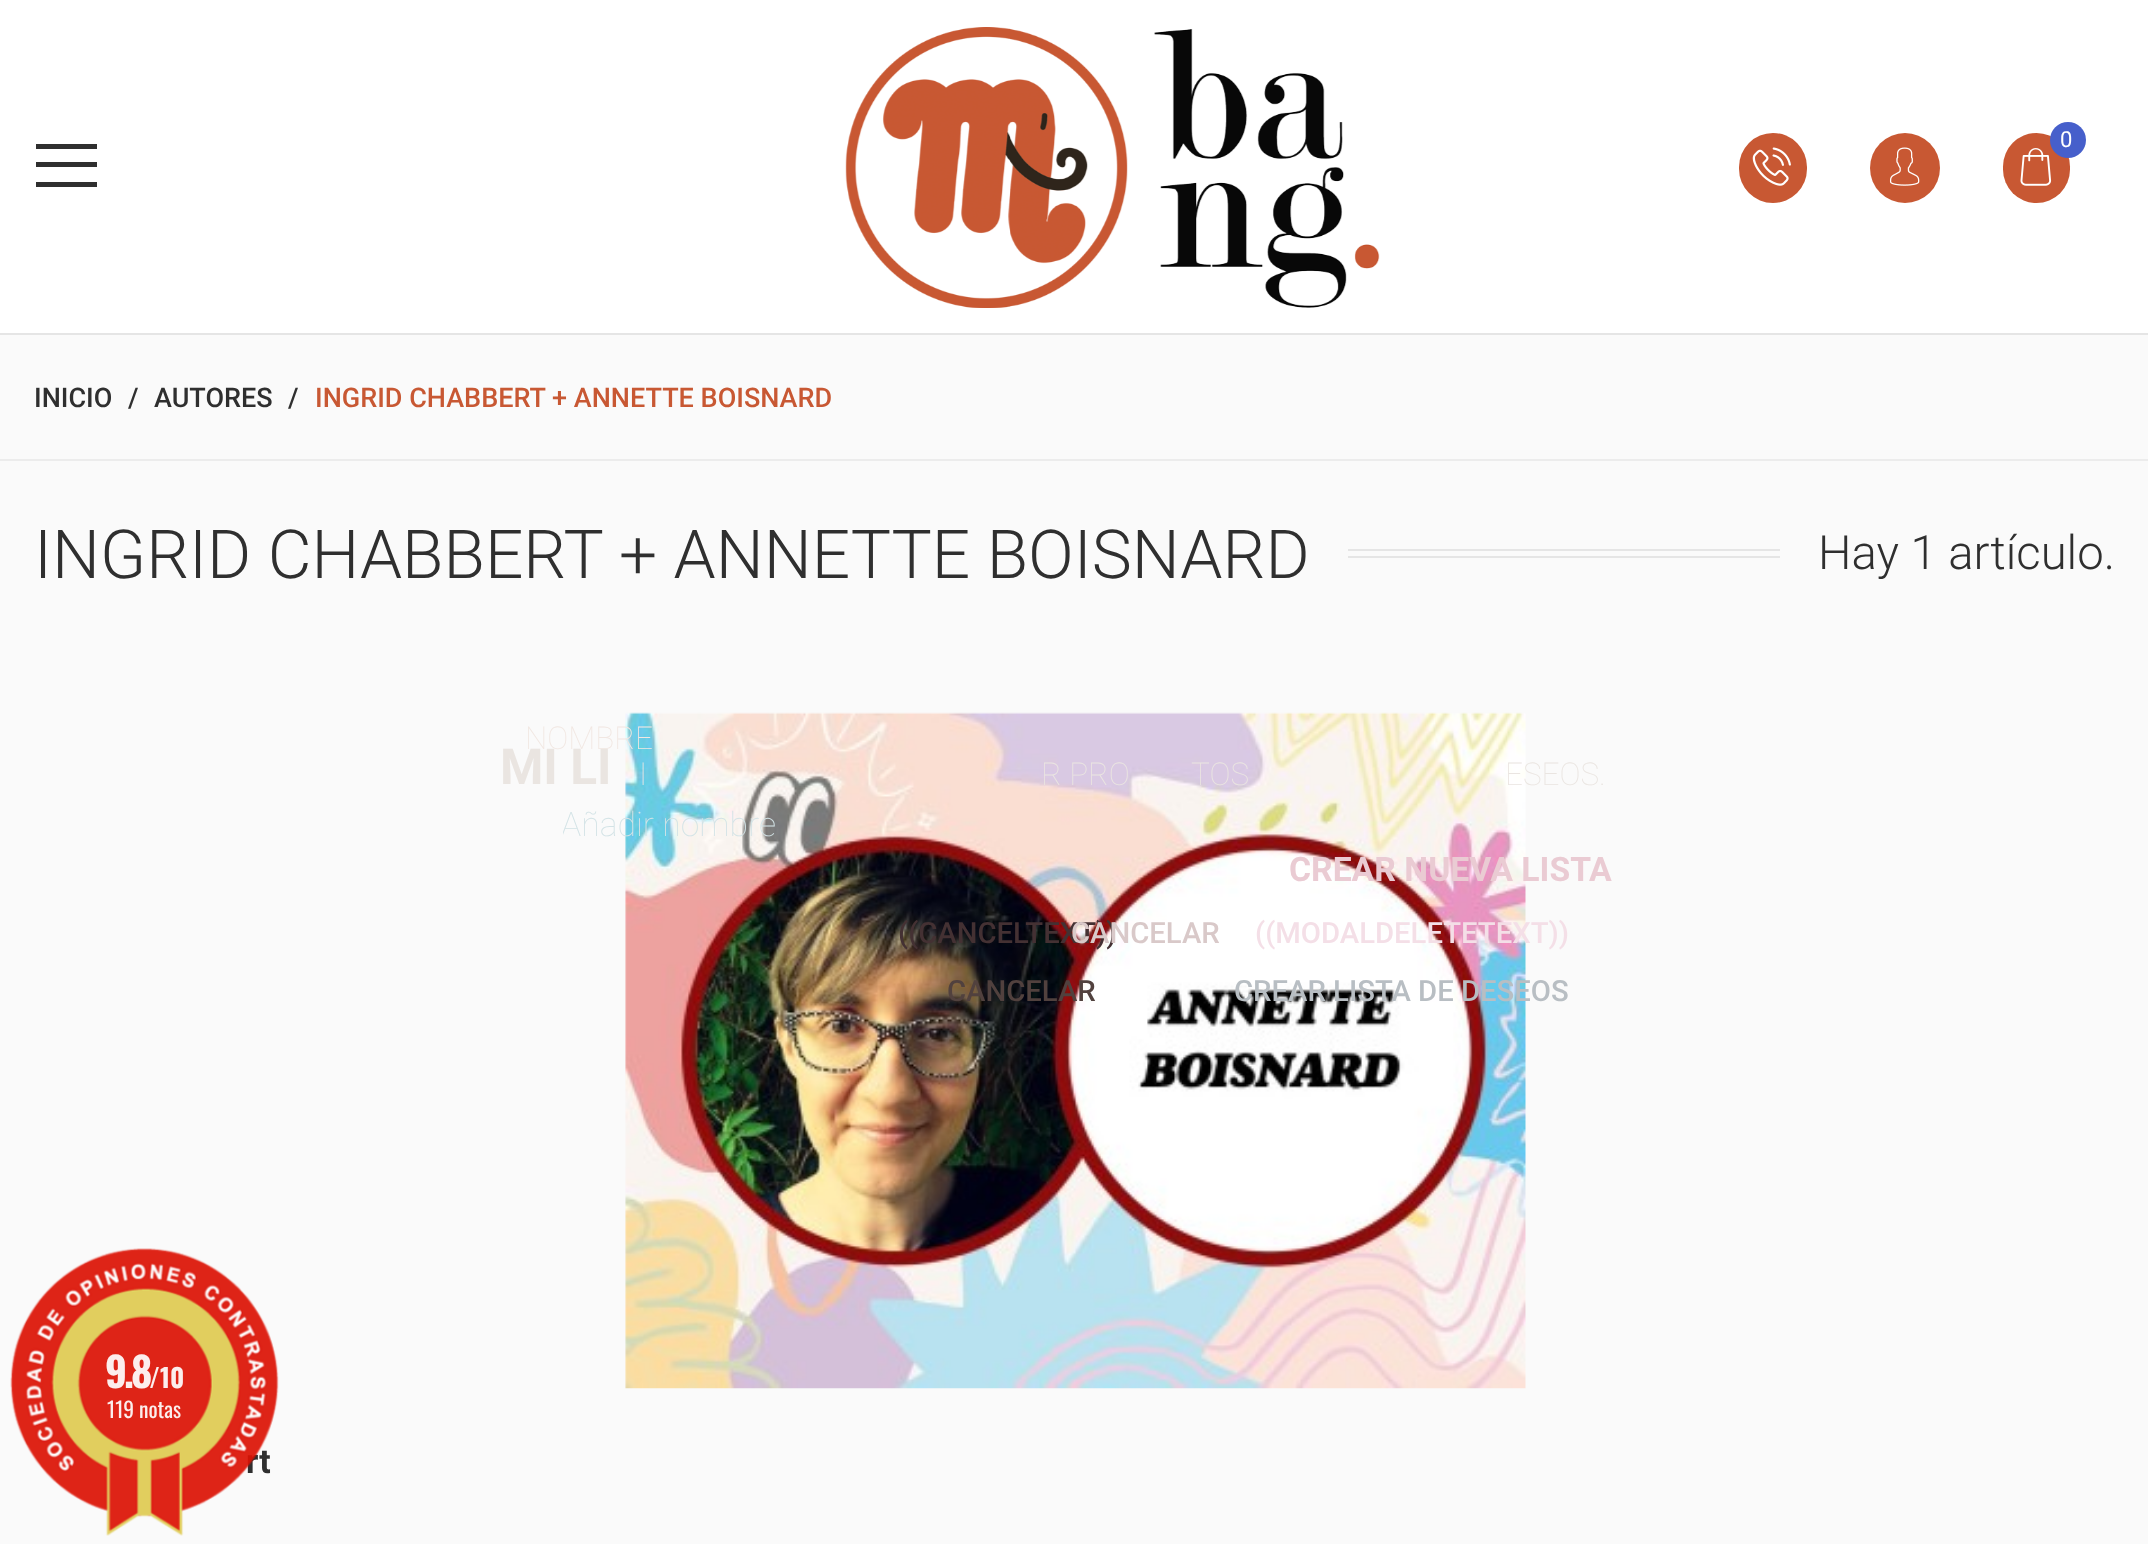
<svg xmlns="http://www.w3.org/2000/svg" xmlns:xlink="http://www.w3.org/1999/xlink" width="2148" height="1544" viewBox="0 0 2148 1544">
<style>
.cls-1{font:22px Roboto;fill:#ffffff}
.cls-2{font:500 27px Roboto;fill:#2f2f2f}
.cls-3{font:500 27px Roboto;fill:#c85833}
.cls-4{font:300 67.5px Roboto;fill:#2f2f2f}
.cls-5{font:300 47.25px Roboto;fill:#2f2f2f}
.cls-6{font:bold 33.75px Roboto;fill:#2f2f2f}
.cls-7{font:100 31.5px Roboto;fill:#f1e7e2}
.cls-8{font:100 33.75px Roboto;fill:#d3e3e6}
.cls-9{font:500 29.25px Roboto;fill:#51413e}
.cls-10{font:500 29.25px Roboto;fill:#b8bec3}
.cls-11{font:bold 49.5px Roboto;fill:#eae5e1}
.cls-12{font:bold 33.75px Roboto;fill:#eacbd3}
.cls-13{font:100 31.5px Roboto;fill:#eae5e1}
.cls-14{font:500 29.25px Roboto;fill:#443133}
.cls-15{font:500 29.25px Roboto;fill:#d9c9c9}
.cls-16{font:500 29.25px Roboto;fill:#f4dfe7}
.cls-17{font:bold 41px Oswald;letter-spacing:-3px;fill:#fceeed}
.cls-18{font:bold 26px Oswald;fill:#fceeed}
.cls-19{font:21.5px Oswald;fill:#fceeed}
</style>
<defs>
<clipPath id="clip1"><rect x="563" y="806" width="1026" height="40"/></clipPath>
</defs>
<rect width="100%" height="100%" fill="#ffffff"/>
<rect fill="#e5e5e5" x="0" y="333" width="2148" height="2"/>
<rect fill="#2f2f2f" x="36" y="144" width="61" height="5"/>
<rect fill="#2f2f2f" x="36" y="162" width="61" height="5"/>
<rect fill="#2f2f2f" x="36" y="182" width="61" height="5"/>
<image xlink:href="image0.png" x="845" y="27" width="535" height="281"/>
<rect fill="#c85833" x="1739" y="133" width="68" height="70" rx="34"/>
<image xlink:href="image1.png" x="1752" y="147" width="39" height="39"/>
<circle fill="#c85833" cx="1905" cy="168" r="35"/>
<image xlink:href="image2.png" x="1889" y="147" width="31" height="39"/>
<rect fill="#c85833" x="2003" y="133" width="67" height="70" rx="33.5"/>
<image xlink:href="image3.png" x="2020" y="148" width="32" height="38"/>
<circle fill="#465fcb" cx="2068" cy="140" r="18"/>
<rect fill="#fafafa" x="0" y="335" width="2148" height="1209"/>
<rect fill="#ececec" x="0" y="459" width="2148" height="2"/>
<rect fill="#e5e5e5" x="1348" y="549" width="432" height="2"/>
<rect fill="#e5e5e5" x="1348" y="556" width="432" height="2"/>
<image xlink:href="image4.png" x="625" y="712" width="901" height="677"/>
<text class="cls-1" x="2060" y="147">0</text>
<text class="cls-2" x="34" y="407">INICIO</text>
<text class="cls-2" x="128" y="407">/</text>
<text class="cls-2" x="154" y="407">AUTORES</text>
<text class="cls-2" x="288" y="407">/</text>
<text class="cls-3" x="315" y="407">INGRID CHABBERT + ANNETTE BOISNARD</text>
<text class="cls-4" x="34" y="578">INGRID CHABBERT + ANNETTE BOISNARD</text>
<text class="cls-5" x="1818" y="569">Hay 1 artículo.</text>
<text class="cls-6" x="246" y="1473">rt</text>
<text class="cls-7" x="525" y="749">NOMBRE</text>
<g clip-path="url(#clip1)">
<text class="cls-8" x="561" y="836">Añadir nombre</text>
</g>
<text class="cls-9" x="947" y="1001">CANCELAR</text>
<text class="cls-10" x="1234" y="1001">CREAR LISTA DE DESEOS</text>
<text class="cls-11" x="500" y="784">MI LI</text>
<text class="cls-12" x="1289" y="881">CREAR NUEVA LISTA</text>
<text class="cls-13" x="639" y="785">I</text>
<text class="cls-13" x="1041" y="785">R PRO</text>
<text class="cls-13" x="1191" y="785">TOS</text>
<text class="cls-13" x="1505" y="785">ESEOS.</text>
<text class="cls-14" x="898" y="943">((CANCELTEXT))</text>
<text class="cls-15" x="1071" y="943">CANCELAR</text>
<text class="cls-16" x="1255" y="943">((MODALDELETETEXT))</text>
<image xlink:href="image5.png" x="10" y="1248" width="269" height="288"/>
<text class="cls-17" x="105" y="1388">9.8</text>
<text class="cls-18" x="149" y="1388">/10</text>
<text class="cls-19" x="107" y="1418">119 notas</text>
</svg>
